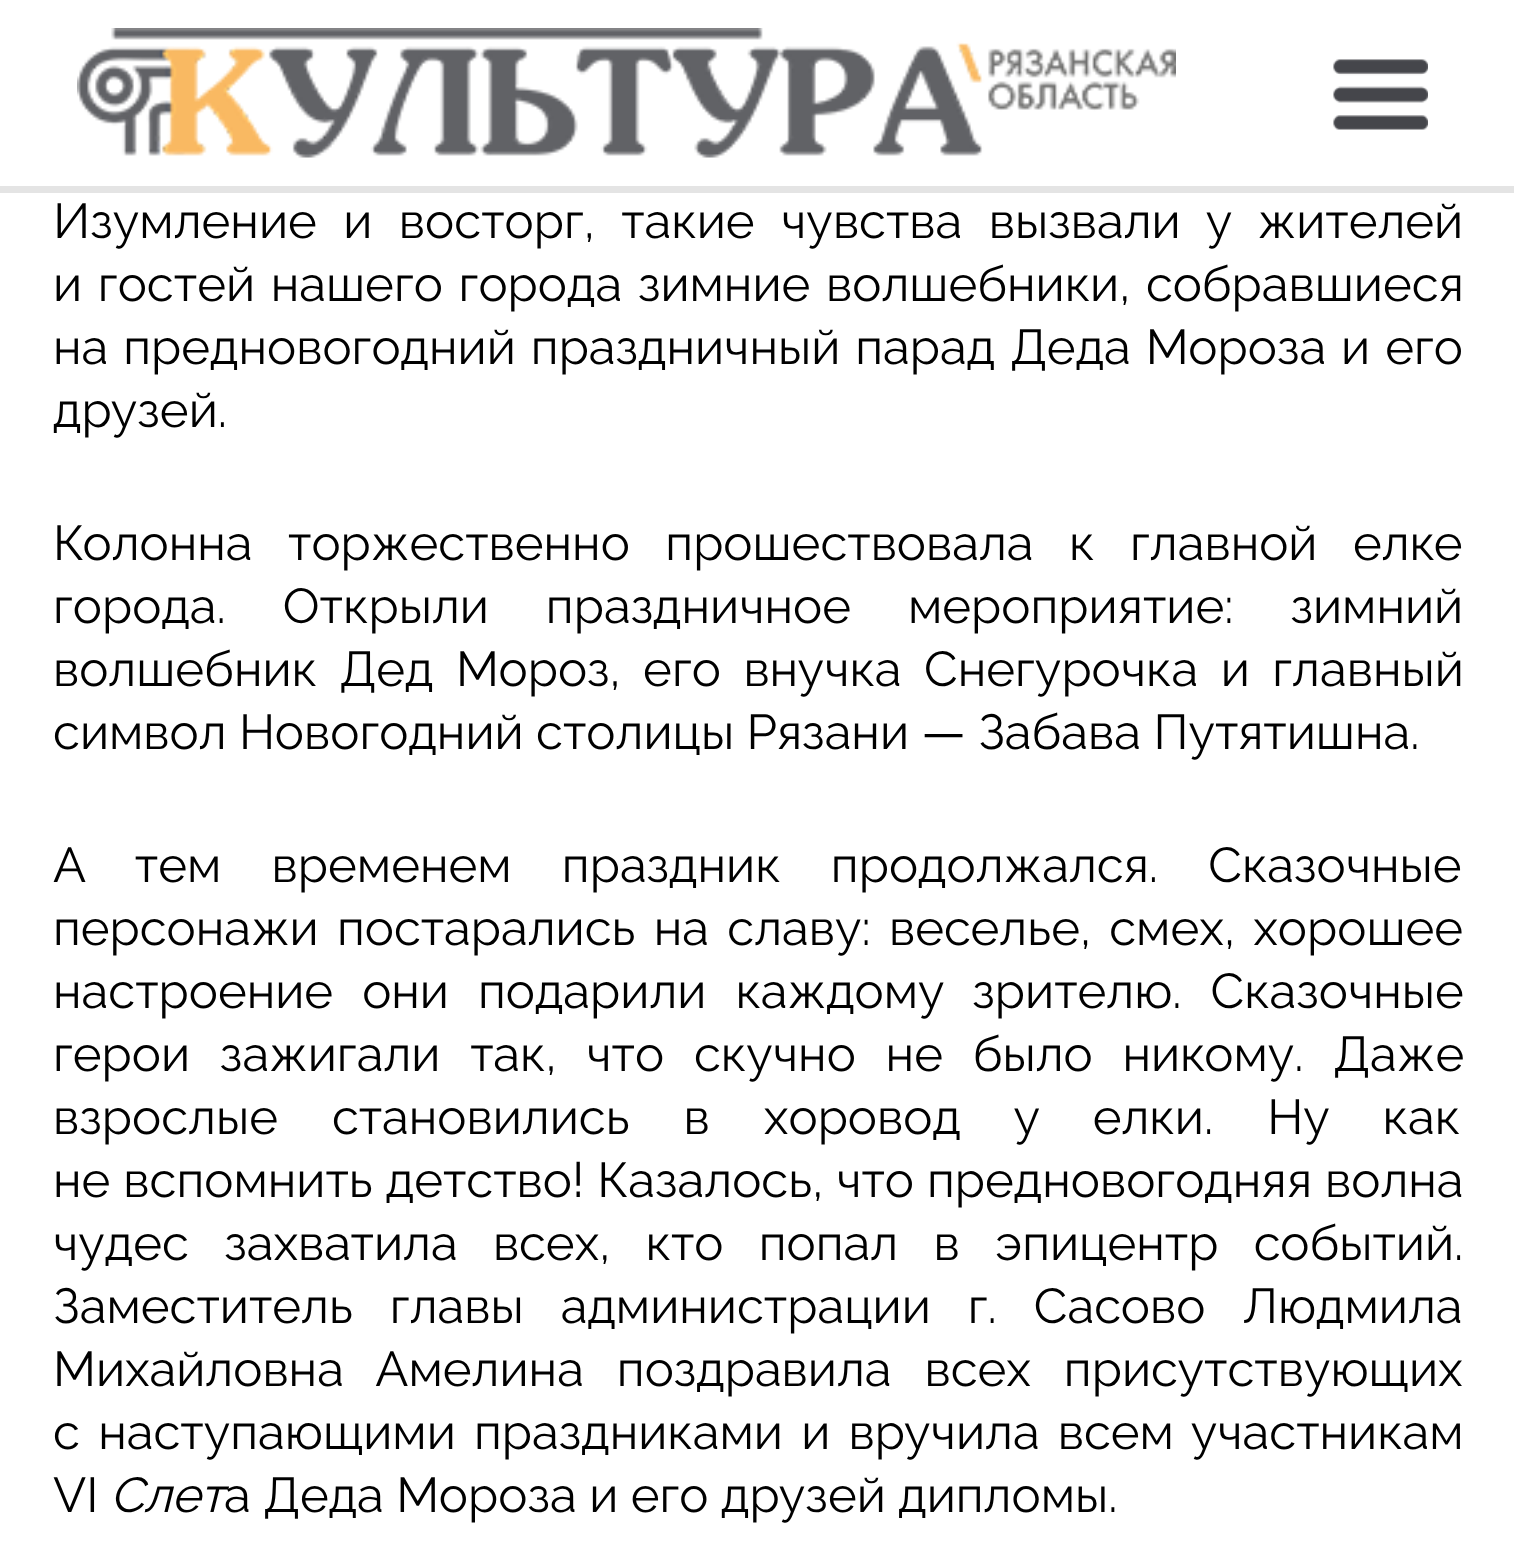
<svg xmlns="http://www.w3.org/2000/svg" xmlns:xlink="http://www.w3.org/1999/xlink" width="1514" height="1563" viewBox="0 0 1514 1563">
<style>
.cls-1{font:100 49px Raleway;fill:#000000}
.cls-2{font:italic 100 49px Raleway;fill:#000000}
</style>
<rect width="100%" height="100%" fill="#ffffff"/>
<rect fill="#e4e4e4" x="0" y="186" width="1514" height="7"/>
<image xlink:href="image0.png" x="77" y="28" width="1099" height="130"/>
<image xlink:href="image1.png" x="1333" y="59" width="95" height="71"/>
<text class="cls-1"><tspan x="53" y="238" word-spacing="14">Изумление и восторг, такие чувства вызвали у жителей</tspan><tspan x="53" y="301" word-spacing="3.25">и гостей нашего города зимние волшебники, собравшиеся</tspan><tspan x="53" y="364" word-spacing="2.5">на предновогодний праздничный парад Деда Мороза и его</tspan><tspan x="53" y="427">друзей.</tspan></text>
<text class="cls-1"><tspan x="53" y="560" word-spacing="23">Колонна торжественно прошествовала к главной елке</tspan><tspan x="53" y="623" word-spacing="44.5">города. Открыли праздничное мероприятие: зимний</tspan><tspan x="53" y="686" word-spacing="10">волшебник Дед Мороз, его внучка Снегурочка и главный</tspan><tspan x="53" y="749">символ Новогодний столицы Рязани — Забава Путятишна.</tspan></text>
<text class="cls-1"><tspan x="53" y="882" word-spacing="37.75">А тем временем праздник продолжался. Сказочные</tspan><tspan x="53" y="945" word-spacing="5.75">персонажи постарались на славу: веселье, смех, хорошее</tspan><tspan x="53" y="1008" word-spacing="16.5">настроение они подарили каждому зрителю. Сказочные</tspan><tspan x="53" y="1071" word-spacing="17.25">герои зажигали так, что скучно не было никому. Даже</tspan><tspan x="53" y="1134" word-spacing="41.5">взрослые становились в хоровод у елки. Ну как</tspan><tspan x="53" y="1197" word-spacing="0.5">не вспомнить детство! Казалось, что предновогодняя волна</tspan><tspan x="53" y="1260" word-spacing="22.75">чудес захватила всех, кто попал в эпицентр событий.</tspan><tspan x="53" y="1323" word-spacing="24.5">Заместитель главы администрации г. Сасово Людмила</tspan><tspan x="53" y="1386" word-spacing="20.5">Михайловна Амелина поздравила всех присутствующих</tspan><tspan x="53" y="1449" word-spacing="5.75">с наступающими праздниками и вручила всем участникам</tspan><tspan x="53" y="1512">VI</tspan></text>
<text class="cls-2" x="110" y="1512">Слет</text>
<text class="cls-1" x="224" y="1512">а Деда Мороза и его друзей дипломы.</text>
</svg>
